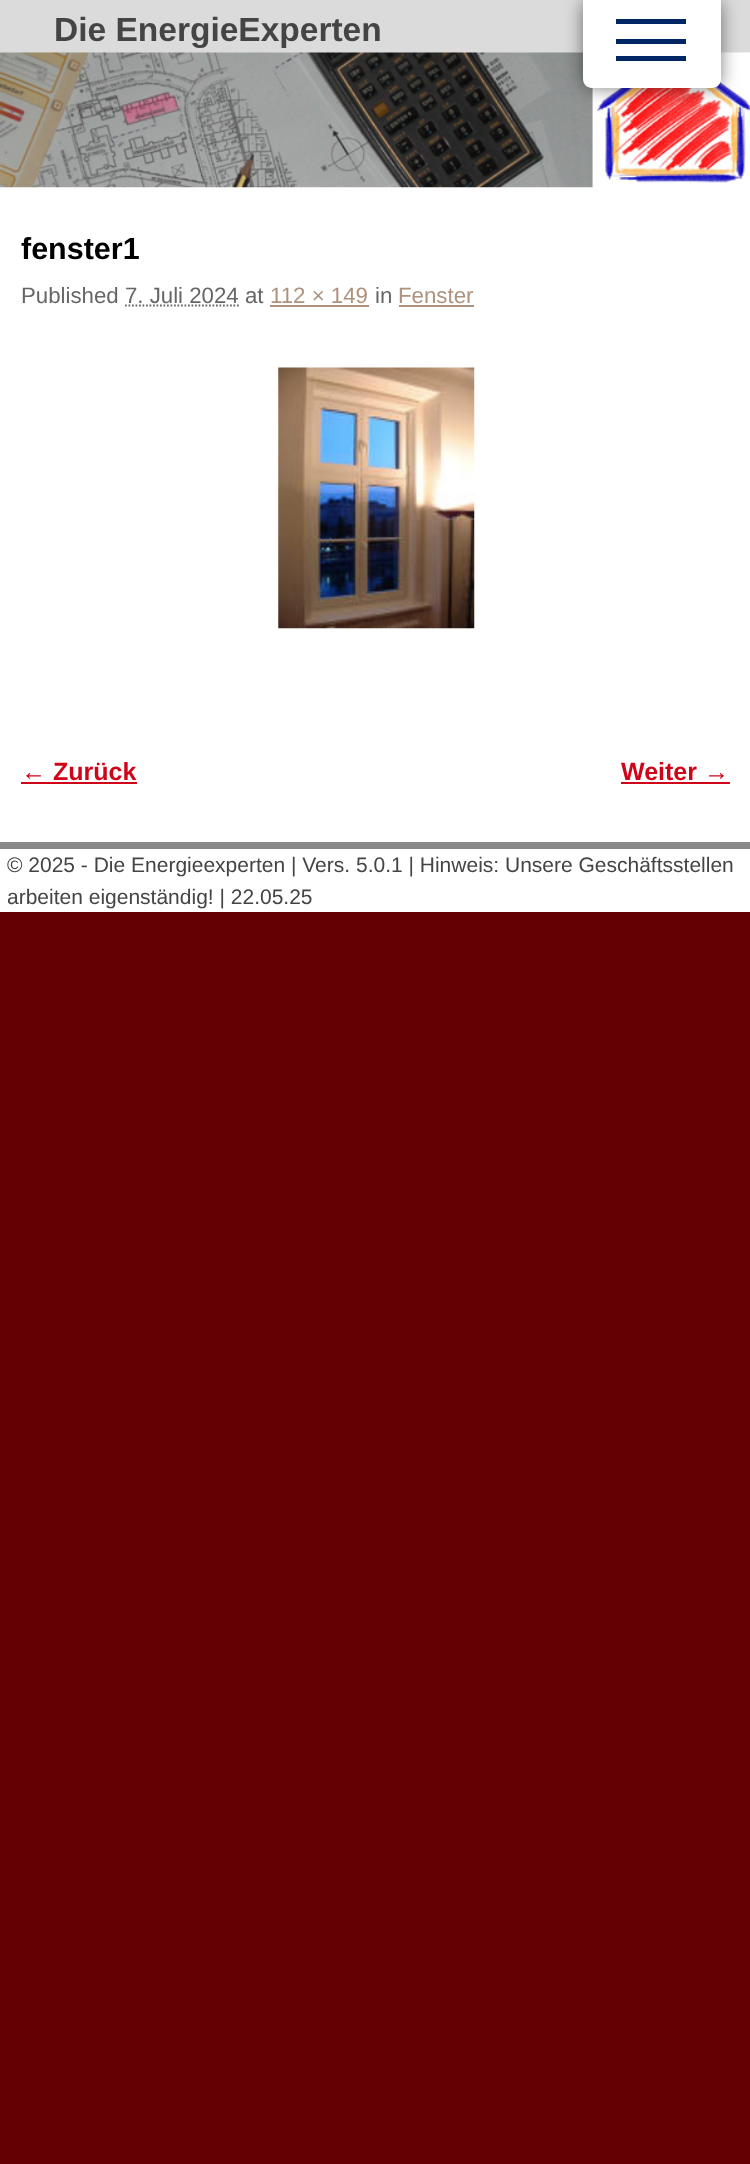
<svg xmlns="http://www.w3.org/2000/svg" xmlns:xlink="http://www.w3.org/1999/xlink" width="750" height="2164" viewBox="0 0 750 2164">
<style>
.cls-1{font:bold 33.5px Liberation Sans;fill:#444444}
.cls-2{font:bold 30.5px Liberation Sans;fill:#000000}
.cls-3{font:22.25px Liberation Sans;fill:#666666}
.cls-4{font:22.25px Liberation Sans;fill:#ae927d}
.cls-5{font:bold 25px Liberation Sans;fill:#cf0418}
.cls-6{font:21px Liberation Sans;fill:#444444}
</style>
<rect width="100%" height="100%" fill="#630003"/>
<rect fill="#ffffff" x="0" y="187" width="750" height="725"/>
<rect fill="#dbdbdb" x="0" y="0" width="750" height="53"/>
<image xlink:href="image0.png" x="0" y="52" width="750" height="136"/>
<rect fill="#000000" fill-opacity="0.5" filter="blur(9px)" x="583" y="0" width="138" height="88" rx="9"/>
<path fill="#ffffff" d="M583 0H721V79C721 84 717 88 712 88H592C587 88 583 84 583 79Z"/>
<rect fill="#002664" x="616" y="19" width="70" height="5"/>
<rect fill="#002664" x="616" y="39" width="70" height="5"/>
<rect fill="#002664" x="616" y="56" width="70" height="5"/>
<rect fill="#ae927d" x="270" y="305" width="99" height="2"/>
<rect fill="#ae927d" x="399" y="305" width="75" height="2"/>
<path fill="none" stroke="#666666" stroke-width="1.8" stroke-dasharray="1.75 1.75" d="M125 305.5H239.5"/>
<image xlink:href="image1.png" x="278" y="367" width="197" height="262"/>
<rect fill="#cf0418" x="21" y="782" width="116" height="2"/>
<rect fill="#cf0418" x="621" y="782" width="109" height="2"/>
<rect fill="#888888" x="0" y="842" width="750" height="7"/>
<text class="cls-1" x="54" y="41">Die EnergieExperten</text>
<text class="cls-2" x="21" y="259">fenster1</text>
<text class="cls-3" x="21" y="303">Published 7. Juli 2024 at</text>
<text class="cls-4" x="270" y="303">112 × 149</text>
<text class="cls-3" x="375" y="303">in</text>
<text class="cls-4" x="398" y="303">Fenster</text>
<text class="cls-5" x="21" y="780">← Zurück</text>
<text class="cls-5" x="621" y="780">Weiter →</text>
<text class="cls-6"><tspan x="7" y="872">© 2025 - Die Energieexperten | Vers. 5.0.1 | Hinweis: Unsere Geschäftsstellen</tspan><tspan x="7" y="904">arbeiten eigenständig! | 22.05.25</tspan></text>
</svg>
